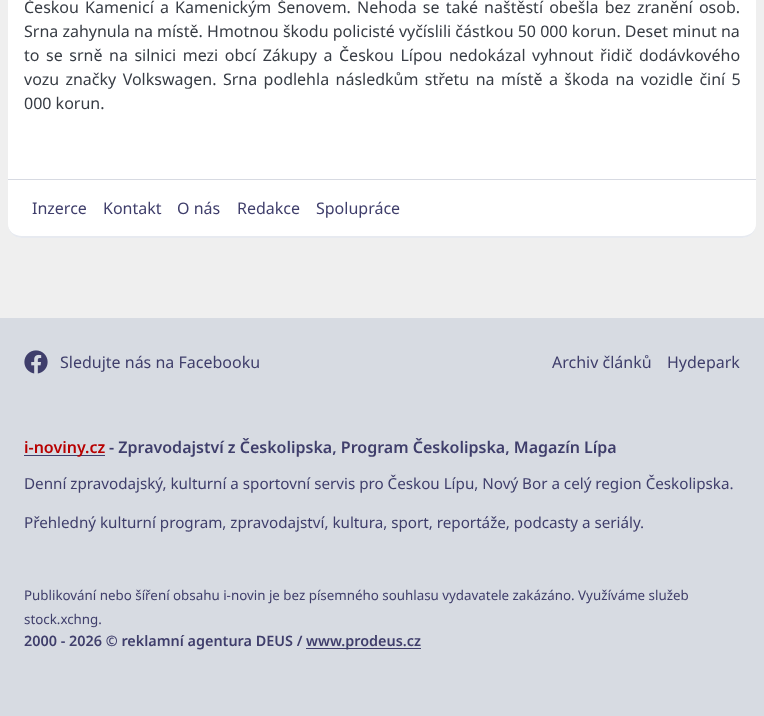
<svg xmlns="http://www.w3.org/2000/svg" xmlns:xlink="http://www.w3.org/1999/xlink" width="764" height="716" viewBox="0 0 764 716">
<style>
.cls-1{font:16px Noto Sans;fill:#373c44}
.cls-2{font:16px Noto Sans;fill:#3f3e6b}
.cls-3{font:600 16px Noto Sans;fill:#b80000}
.cls-4{font:600 16px Noto Sans;fill:#3f3e6b}
.cls-5{font:15.2px Noto Sans;fill:#3f3e6b}
.cls-6{font:13.35px Noto Sans;fill:#3f3e6b}
.cls-7{font:600 14.4px Noto Sans;fill:#3f3e6b}
</style>
<rect width="100%" height="100%" fill="#efefef"/>
<rect fill="#ffffff" x="8" y="0" width="748" height="179"/>
<path fill="#ffffff" d="M8 179H756V224C756 231.5 749.5 238 742 238H22C14.5 238 8 231.5 8 224Z"/>
<rect fill="#d7dae2" x="8" y="179" width="748" height="1"/>
<path fill="#e7eaf0" d="M22 238H742C750 238 756 232 756 224C756 231 750 236 742 236H22C14 236 8 231 8 224C8 232 14 238 22 238Z"/>
<rect fill="#d7dbe2" x="0" y="318" width="764" height="398"/>
<image xlink:href="image0.png" x="24" y="350" width="24" height="24"/>
<rect fill="#3f3e6b" x="24" y="455" width="81" height="1"/>
<rect fill="#3f3e6b" x="306" y="648" width="115" height="1"/>
<text class="cls-1"><tspan x="24" y="13" word-spacing="2">Českou Kamenicí a Kamenickým Šenovem. Nehoda se také naštěstí obešla bez zranění osob.</tspan><tspan x="24" y="37">Srna zahynula na místě. Hmotnou škodu policisté vyčíslili částkou 50 000 korun. Deset minut na</tspan><tspan x="24" y="61" word-spacing="2.4">to se srně na silnici mezi obcí Zákupy a Českou Lípou nedokázal vyhnout řidič dodávkového</tspan><tspan x="24" y="85" word-spacing="2.25">vozu značky Volkswagen. Srna podlehla následkům střetu na místě a škoda na vozidle činí 5</tspan><tspan x="24" y="109">000 korun.</tspan></text>
<text class="cls-2" x="32" y="214">Inzerce</text>
<text class="cls-2" x="103" y="214">Kontakt</text>
<text class="cls-2" x="177" y="214">O nás</text>
<text class="cls-2" x="237" y="214">Redakce</text>
<text class="cls-2" x="316" y="214">Spolupráce</text>
<text class="cls-2" x="60" y="368">Sledujte nás na Facebooku</text>
<text class="cls-2" x="552" y="368">Archiv článků</text>
<text class="cls-2" x="667" y="368">Hydepark</text>
<text class="cls-3" x="24" y="453">i-noviny.cz</text>
<text class="cls-4" x="109" y="453">- Zpravodajství z Českolipska, Program Českolipska, Magazín Lípa</text>
<text class="cls-5" x="24" y="489">Denní zpravodajský, kulturní a sportovní servis pro Českou Lípu, Nový Bor a celý region Českolipska.</text>
<text class="cls-5" x="24" y="528">Přehledný kulturní program, zpravodajství, kultura, sport, reportáže, podcasty a seriály.</text>
<text class="cls-6"><tspan x="24" y="600">Publikování nebo šíření obsahu i-novin je bez písemného souhlasu vydavatele zakázáno. Využíváme služeb</tspan><tspan x="24" y="624">stock.xchng.</tspan></text>
<text class="cls-7" x="24" y="646">2000 - 2026 © reklamní agentura DEUS /</text>
<text class="cls-7" x="306" y="646">www.prodeus.cz</text>
</svg>
